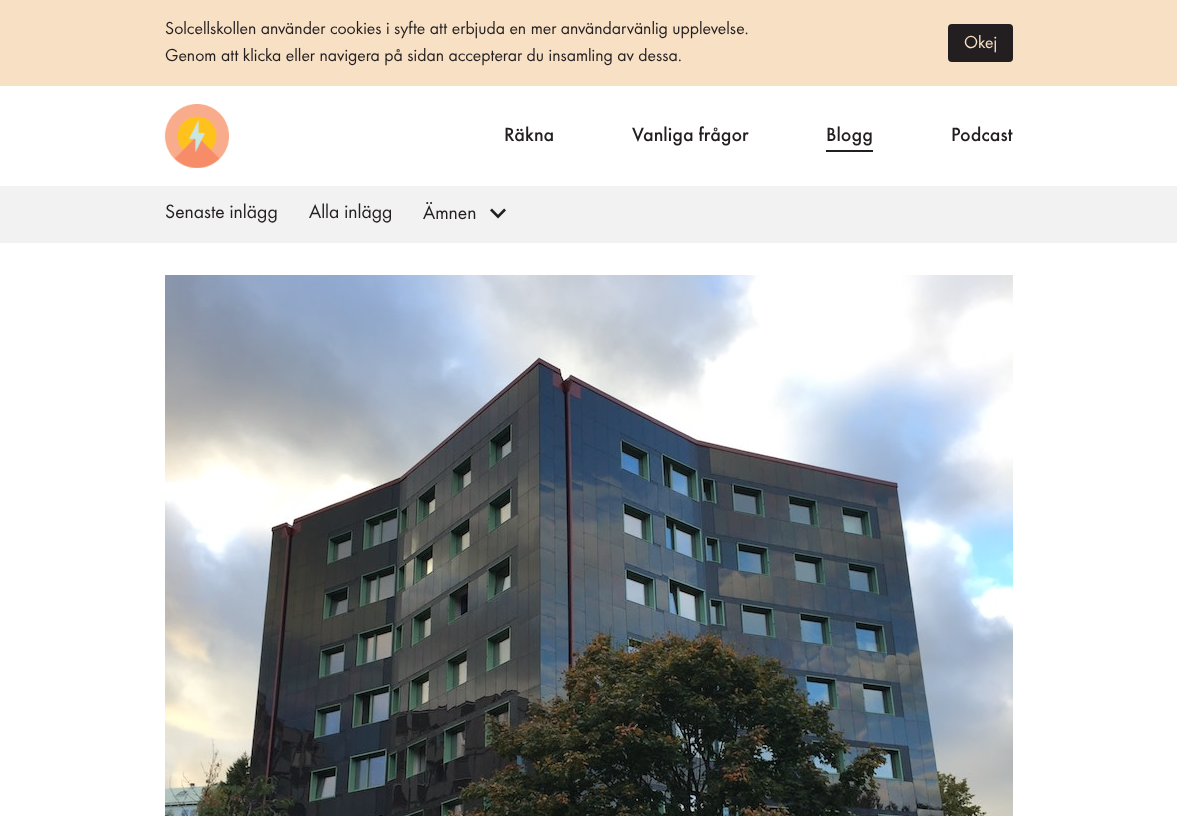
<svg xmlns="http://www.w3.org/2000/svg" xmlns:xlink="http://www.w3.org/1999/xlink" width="1177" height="816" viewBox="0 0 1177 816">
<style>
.cls-1{font:18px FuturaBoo;fill:#231f20}
.cls-2{font:18px FuturaBoo;fill:#f8e0c5}
.cls-3{font:20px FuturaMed;fill:#231f20}
.cls-4{font:20px FuturaBoo;fill:#231f20}
</style>
<rect width="100%" height="100%" fill="#ffffff"/>
<rect fill="#f8e0c5" x="0" y="0" width="1177" height="86"/>
<rect fill="#231f20" x="948" y="24" width="65" height="38" rx="4"/>
<image xlink:href="image0.png" x="164" y="104" width="65" height="64"/>
<rect fill="#231f20" x="826" y="150" width="47" height="2"/>
<rect fill="#f2f2f2" x="0" y="186" width="1177" height="57"/>
<image xlink:href="image1.png" x="490" y="208" width="16" height="11"/>
<image xlink:href="image2.png" x="165" y="275" width="848" height="541"/>
<text class="cls-1"><tspan x="165" y="34">Solcellskollen använder cookies i syfte att erbjuda en mer användarvänlig upplevelse.</tspan><tspan x="165" y="61">Genom att klicka eller navigera på sidan accepterar du insamling av dessa.</tspan></text>
<text class="cls-2" x="964" y="48">Okej</text>
<text class="cls-3" x="504" y="141">Räkna</text>
<text class="cls-3" x="632" y="141">Vanliga frågor</text>
<text class="cls-3" x="826" y="141">Blogg</text>
<text class="cls-3" x="951" y="141">Podcast</text>
<text class="cls-4" x="165" y="218">Senaste inlägg</text>
<text class="cls-4" x="309" y="218">Alla inlägg</text>
<text class="cls-4" x="423" y="219">Ämnen</text>
</svg>
